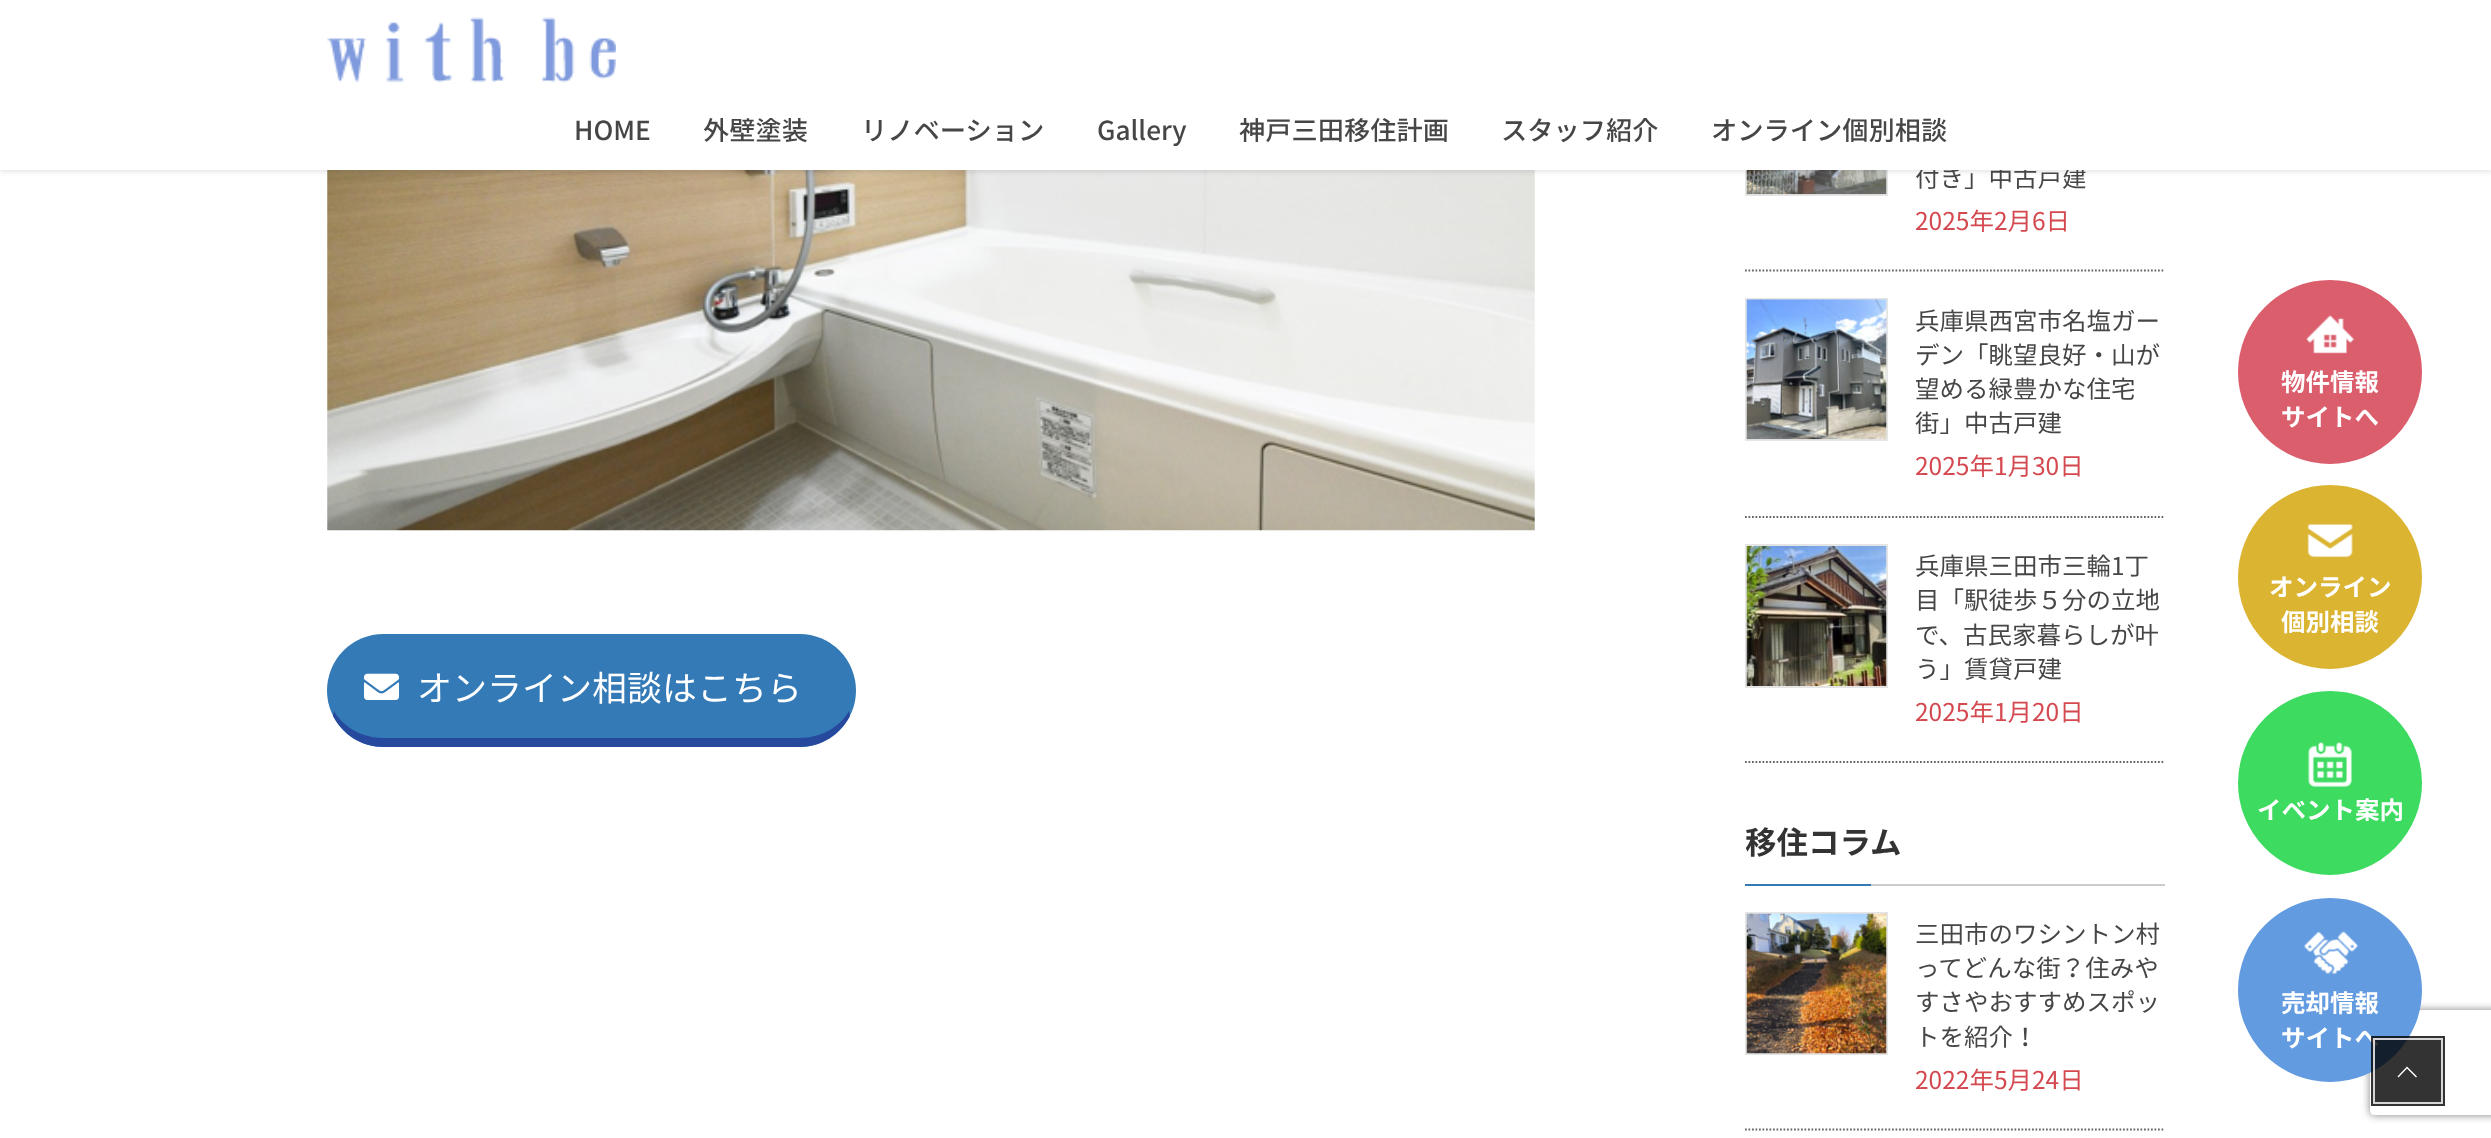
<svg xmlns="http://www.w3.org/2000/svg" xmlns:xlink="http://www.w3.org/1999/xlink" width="2491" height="1138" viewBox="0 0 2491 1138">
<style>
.cls-1{font:35px Noto Sans JP;fill:#ffffff}
.cls-2{font:24.5px Noto Sans JP;fill:#464646}
.cls-3{font:500 26.25px Noto Sans JP;fill:#464646}
.cls-4{font:24.5px Noto Sans JP;fill:#d44950}
.cls-5{font:bold 31.5px Noto Sans JP;fill:#333333}
.cls-6{font:bold 24.5px Noto Sans JP;fill:#ffffff}
</style>
<defs>
<clipPath id="clip1"><path d="M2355 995H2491V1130H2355ZM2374 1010H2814C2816 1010 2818 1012 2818 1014V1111C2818 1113 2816 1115 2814 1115H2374C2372 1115 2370 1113 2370 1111V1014C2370 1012 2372 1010 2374 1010Z" clip-rule="evenodd"/></clipPath>
</defs>
<rect width="100%" height="100%" fill="#ffffff"/>
<image xlink:href="image1.png" x="327" y="170" width="1208" height="361"/>
<rect fill="none" stroke="#e5e5e5" stroke-width="2" x="1746" y="54" width="141" height="141"/>
<image xlink:href="image3.png" x="1746" y="170" width="141" height="25"/>
<rect fill="#000000" fill-opacity="0.1" filter="blur(2.5px)" x="0" y="2" width="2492" height="170"/>
<rect fill="#337ab7" x="327" y="634" width="529" height="113" rx="56.5"/>
<path fill="#26499d" d="M850 716C840 735 821 747 799 747H384C362 747 343 735 333 716L334 711C343 727 362 738 384 738H799C821 738 840 727 849 711Z"/>
<image xlink:href="image2.png" x="364" y="673" width="35" height="27"/>
<path fill="none" stroke="#666666" stroke-width="1.8" stroke-dasharray="1.75 1.75" d="M1745 270.5H2165"/>
<path fill="none" stroke="#666666" stroke-width="1.8" stroke-dasharray="1.75 1.75" d="M1745 517H2165"/>
<rect fill="none" stroke="#e5e5e5" stroke-width="2" x="1746" y="299" width="141" height="141"/>
<image xlink:href="image4.png" x="1746" y="299" width="141" height="141"/>
<path fill="none" stroke="#666666" stroke-width="1.8" stroke-dasharray="1.75 1.75" d="M1745 762H2165"/>
<rect fill="none" stroke="#e5e5e5" stroke-width="2" x="1746" y="545" width="141" height="142"/>
<image xlink:href="image5.png" x="1746" y="546" width="141" height="140"/>
<rect fill="#cccccc" x="1871" y="884" width="294" height="2"/>
<rect fill="#337ab7" x="1745" y="884" width="126" height="2"/>
<path fill="none" stroke="#666666" stroke-width="1.8" stroke-dasharray="1.75 1.75" d="M1745 1129.5H2165"/>
<rect fill="none" stroke="#e5e5e5" stroke-width="2" x="1746" y="913" width="141" height="141"/>
<image xlink:href="image6.png" x="1746" y="913" width="141" height="141"/>
<circle fill="#db5e6d" stroke="#db5e6d" stroke-width="2" cx="2330" cy="372" r="91"/>
<image xlink:href="image7.png" x="2306" y="315" width="49" height="39"/>
<circle fill="#dbb432" stroke="#dbb432" stroke-width="2" cx="2330" cy="577" r="91"/>
<image xlink:href="image8.png" x="2307" y="523" width="46" height="35"/>
<circle fill="#3ddb60" stroke="#3ddb60" stroke-width="2" cx="2330" cy="783" r="91"/>
<image xlink:href="image9.png" x="2307" y="742" width="45" height="45"/>
<g clip-path="url(#clip1)">
<rect fill="#808080" filter="blur(4.5px)" x="2370" y="1010" width="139" height="105" rx="4"/>
</g>
<circle fill="#639be0" stroke="#639be0" stroke-width="2" cx="2330" cy="990" r="91"/>
<image xlink:href="image10.png" x="2304" y="931" width="54" height="44"/>
<text class="cls-1" x="417" y="701">オンライン相談はこちら</text>
<text class="cls-2" x="1915" y="187">付き」中古戸建</text>
<rect fill="#ffffff" x="0" y="0" width="2491" height="170"/>
<text class="cls-3" x="1711" y="140">オンライン個別相談</text>
<text class="cls-3" x="1501" y="140">スタッフ紹介</text>
<text class="cls-3" x="1239" y="140">神戸三田移住計画</text>
<text class="cls-3" x="1097" y="140">Gallery</text>
<text class="cls-3" x="861" y="140">リノベーション</text>
<text class="cls-3" x="703" y="140">外壁塗装</text>
<text class="cls-3" x="574" y="140">HOME</text>
<image xlink:href="image0.png" x="327" y="17" width="289" height="66"/>
<text class="cls-4" x="1915" y="230">2025年2月6日</text>
<text class="cls-2"><tspan x="1915" y="330">兵庫県西宮市名塩ガー</tspan><tspan x="1915" y="364">デン「眺望良好・山が</tspan><tspan x="1915" y="398">望める緑豊かな住宅</tspan><tspan x="1915" y="432">街」中古戸建</tspan></text>
<text class="cls-4" x="1915" y="475">2025年1月30日</text>
<text class="cls-2"><tspan x="1915" y="575">兵庫県三田市三輪1丁</tspan><tspan x="1915" y="609">目「駅徒歩５分の立地</tspan><tspan x="1915" y="644">で、古民家暮らしが叶</tspan><tspan x="1915" y="678">う」賃貸戸建</tspan></text>
<text class="cls-4" x="1915" y="721">2025年1月20日</text>
<text class="cls-5" x="1745" y="854">移住コラム</text>
<text class="cls-2"><tspan x="1915" y="943">三田市のワシントン村</tspan><tspan x="1915" y="977">ってどんな街？住みや</tspan><tspan x="1915" y="1011">すさやおすすめスポッ</tspan><tspan x="1915" y="1046">トを紹介！</tspan></text>
<text class="cls-4" x="1915" y="1089">2022年5月24日</text>
<text class="cls-6"><tspan x="2281" y="391">物件情報</tspan><tspan x="2281" y="426">サイトへ</tspan></text>
<text class="cls-6" x="2269" y="596">オンライン</text>
<text class="cls-6" x="2281" y="631">個別相談</text>
<text class="cls-6" x="2257" y="819">イベント案内</text>
<text class="cls-6"><tspan x="2281" y="1012">売却情報</tspan><tspan x="2281" y="1047">サイトへ</tspan></text>
<rect fill="#000000" fill-opacity="0.8" x="2373" y="1038" width="70" height="66"/>
<path fill="#ffffff" d="M2417 1076.5L2416 1077.5L2407 1068.5L2398.5 1077.5L2397.5 1076.5L2407 1066.5Z"/>
<rect fill="none" stroke="#ffffff" stroke-opacity="0.8" stroke-width="2" x="2374" y="1039" width="68" height="64"/>
<rect fill="none" stroke="#000000" stroke-opacity="0.8" stroke-width="2" x="2372" y="1037" width="72" height="68"/>
</svg>
